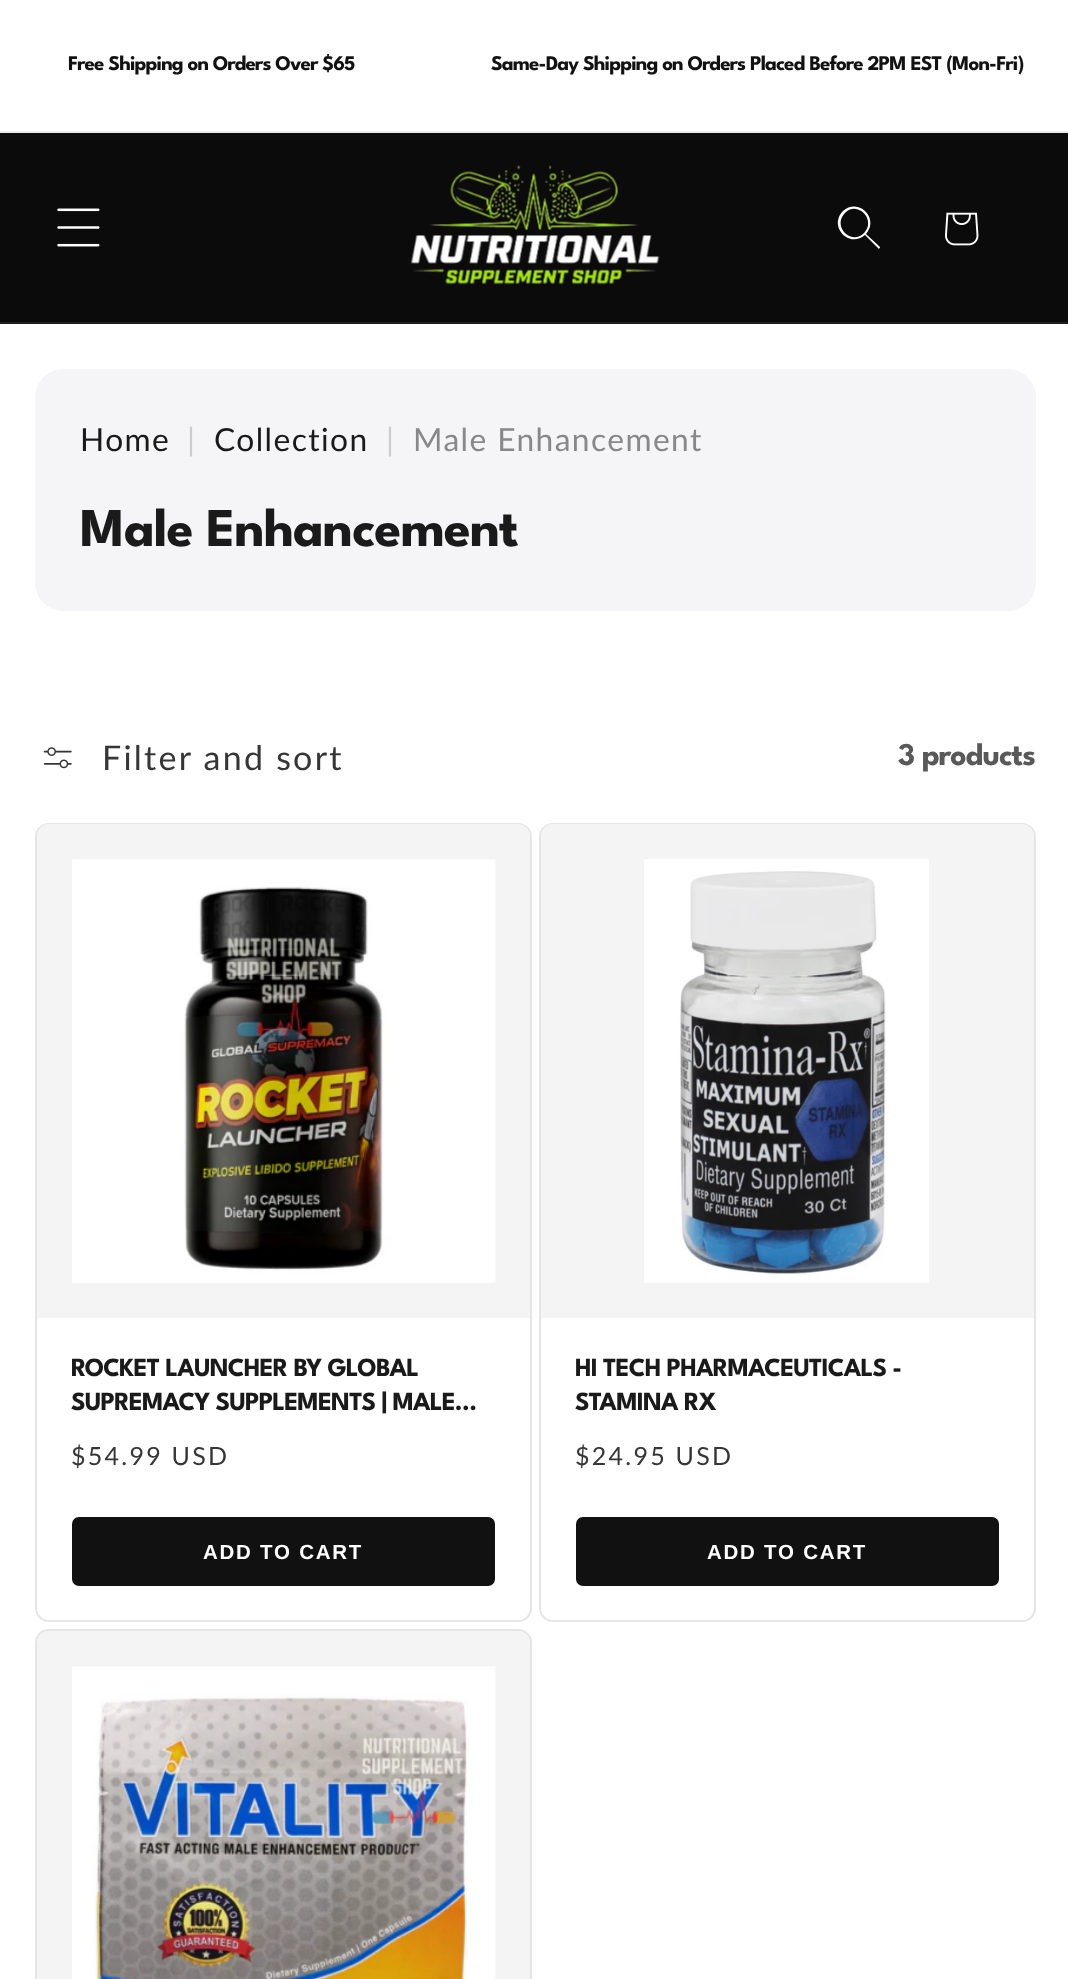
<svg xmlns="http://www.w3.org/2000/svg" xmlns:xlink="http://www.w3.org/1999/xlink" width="1068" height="1979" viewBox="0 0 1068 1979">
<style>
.cls-1{font:bold 21px League Spartan;letter-spacing:-0.88px;fill:#121212}
.cls-2{font:31.75px Lato;letter-spacing:1.4px;fill:#1a1a1a}
.cls-3{font:31.75px Lato;letter-spacing:1.4px;fill:#cccccc}
.cls-4{font:31.75px Lato;letter-spacing:1.4px;fill:#888888}
.cls-5{font:bold 54.5px League Spartan;letter-spacing:-0.88px;fill:#1a1a1a}
.cls-6{font:34px Lato;letter-spacing:2.25px;fill:#363636}
.cls-7{font:bold 31.75px League Spartan;letter-spacing:-0.88px;fill:#595959}
.cls-8{font:bold 26.2px League Spartan;letter-spacing:-0.88px;fill:#1a1a1a}
.cls-9{font:25px Lato;letter-spacing:2.25px;fill:#363636}
.cls-10{font:bold 20.5px Liberation Sans;letter-spacing:1.75px;fill:#ffffff}
</style>
<defs>
<clipPath id="clip1"><rect x="72" y="1353" width="423" height="68"/></clipPath>
</defs>
<rect width="100%" height="100%" fill="#ffffff"/>
<rect fill="#ececec" x="0" y="131" width="1068" height="2"/>
<rect fill="#0b0b0b" x="0" y="133" width="1068" height="189"/>
<rect fill="#1f1f1f" x="0" y="322" width="1068" height="2"/>
<image xlink:href="image0.png" x="57" y="208" width="43" height="39"/>
<image xlink:href="image1.png" x="410" y="165" width="250" height="120"/>
<path fill="#ffffff" fill-rule="evenodd" d="M864 233C851 246 832 226 845 213C857 200 877 220 864 233M865 235C849 249 828 226 843 211C858 197 880 218 866 234L880 247C880 249 878 249 878 248Z"/>
<image xlink:href="image2.png" x="945" y="212" width="34" height="34"/>
<rect fill="#f5f5f7" x="35" y="369" width="1001" height="242" rx="28"/>
<image xlink:href="image3.png" x="43" y="747" width="29" height="22"/>
<rect fill="none" stroke="#e5e5e5" stroke-width="2" x="36" y="824" width="495" height="797" rx="13"/>
<path fill="#f4f4f4" d="M49 824H518C524.5 824 530 829.5 530 836V1318H37V836C37 829.5 42.5 824 49 824Z"/>
<image xlink:href="image4.png" x="72" y="859" width="424" height="424"/>
<rect fill="#111111" stroke="#111111" stroke-width="2" x="73" y="1518" width="421" height="67" rx="6"/>
<rect fill="none" stroke="#e5e5e5" stroke-width="2" x="540" y="824" width="495" height="797" rx="13"/>
<path fill="#f4f4f4" d="M553 824H1022C1028.5 824 1034 829.5 1034 836V1318H541V836C541 829.5 546.5 824 553 824Z"/>
<image xlink:href="image5.png" x="644" y="859" width="285" height="424"/>
<rect fill="#111111" stroke="#111111" stroke-width="2" x="577" y="1518" width="421" height="67" rx="6"/>
<rect fill="none" stroke="#e5e5e5" stroke-width="2" x="36" y="1630" width="495" height="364" rx="13"/>
<path fill="#f4f4f4" d="M49 1631H518C524.5 1631 530 1636.5 530 1643V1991H37V1643C37 1636.5 42.5 1631 49 1631Z"/>
<image xlink:href="image6.png" x="72" y="1666" width="424" height="313"/>
<text class="cls-1" x="68" y="70">Free Shipping on Orders Over $65</text>
<text class="cls-1" x="491" y="70">Same-Day Shipping on Orders Placed Before 2PM EST (Mon-Fri)</text>
<text class="cls-2" x="80" y="451">Home</text>
<text class="cls-3" x="187" y="451">|</text>
<text class="cls-2" x="214" y="451">Collection</text>
<text class="cls-3" x="386" y="451">|</text>
<text class="cls-4" x="413" y="451">Male Enhancement</text>
<text class="cls-5" x="80" y="546">Male Enhancement</text>
<text class="cls-6" x="102" y="770">Filter and sort</text>
<text class="cls-7" x="898" y="765">3 products</text>
<g clip-path="url(#clip1)">
<text class="cls-8" x="71" y="1376">ROCKET LAUNCHER BY GLOBAL</text>
</g>
<text class="cls-8" x="71" y="1410">SUPREMACY SUPPLEMENTS | MALE…</text>
<text class="cls-9" x="71" y="1465">$54.99 USD</text>
<text class="cls-10" x="203" y="1559">ADD TO CART</text>
<text class="cls-8"><tspan x="575" y="1376">HI TECH PHARMACEUTICALS -</tspan><tspan x="575" y="1410">STAMINA RX</tspan></text>
<text class="cls-9" x="575" y="1465">$24.95 USD</text>
<text class="cls-10" x="707" y="1559">ADD TO CART</text>
</svg>
